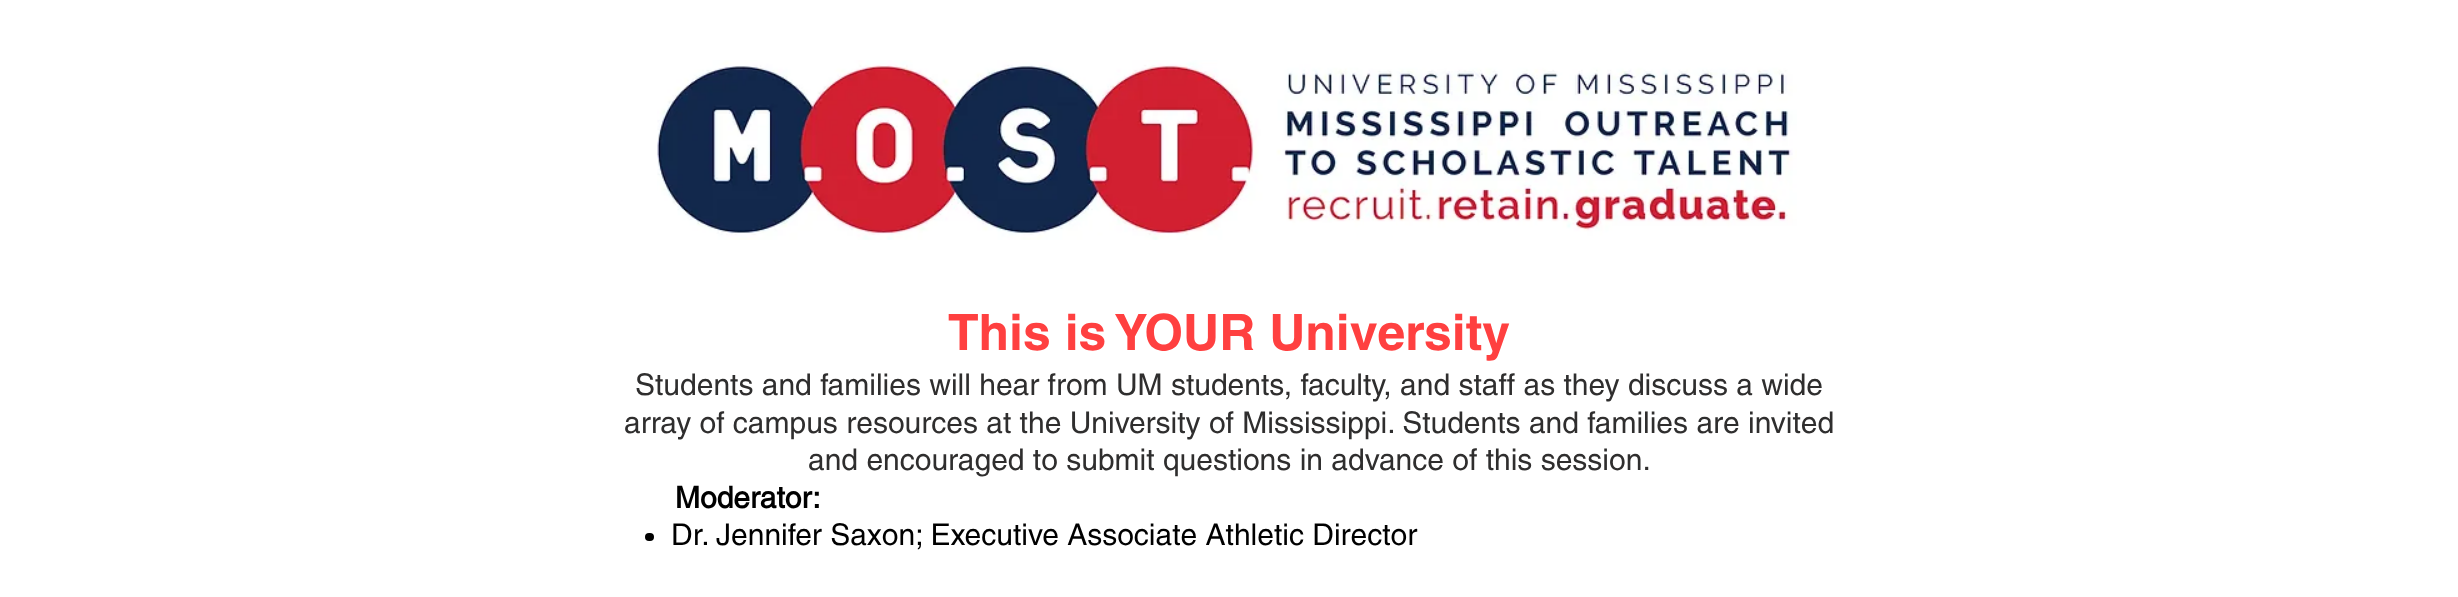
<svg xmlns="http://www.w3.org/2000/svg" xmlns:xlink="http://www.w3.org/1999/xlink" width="2458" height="597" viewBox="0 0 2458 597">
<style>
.cls-1{font:bold 50px helvetica;fill:#ff4040}
.cls-2{font:30px helvetica;fill:#2f2e2e}
.cls-3{font:bold 30px 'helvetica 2';fill:#000000}
.cls-4{font:30px helvetica;fill:#000000}
</style>
<rect width="100%" height="100%" fill="#ffffff"/>
<image xlink:href="image0.png" x="657" y="60" width="1140" height="180"/>
<rect fill="#000000" x="645" y="533" width="9" height="8" rx="4"/>
<text class="cls-1" x="948" y="350">This is YOUR University</text>
<text class="cls-2" x="635" y="395">Students and families will hear from UM students, faculty, and staff as they discuss a wide</text>
<text class="cls-2" x="624" y="433">array of campus resources at the University of Mississippi. Students and families are invited</text>
<text class="cls-2" x="808" y="470">and encouraged to submit questions in advance of this session.</text>
<text class="cls-3" x="675" y="508">Moderator:</text>
<text class="cls-4" x="671" y="545">Dr. Jennifer Saxon; Executive Associate Athletic Director</text>
</svg>
